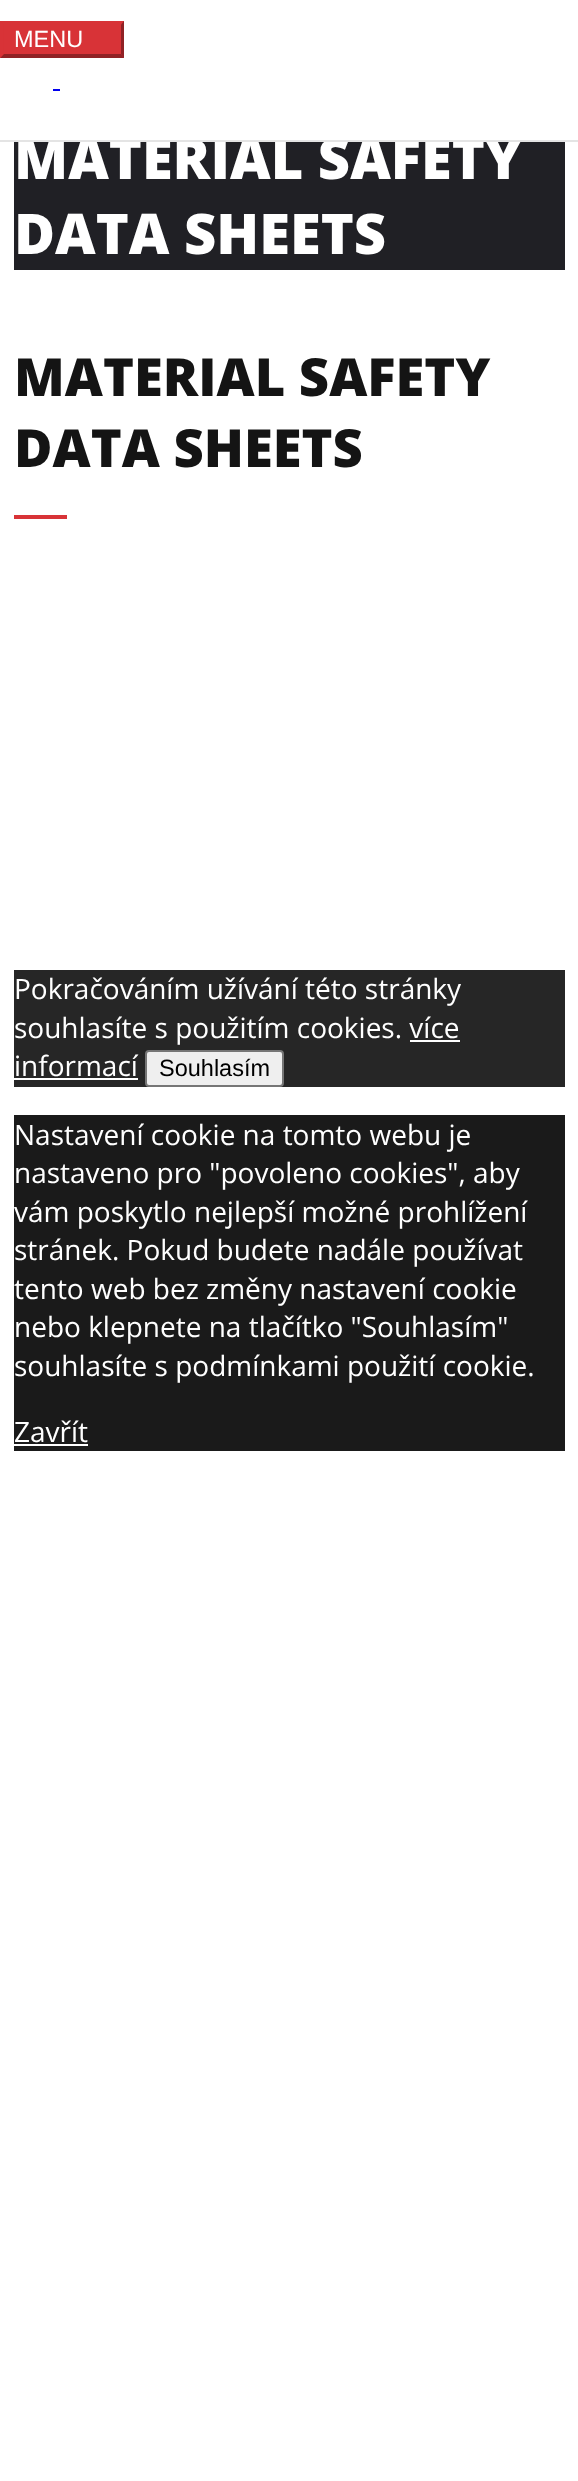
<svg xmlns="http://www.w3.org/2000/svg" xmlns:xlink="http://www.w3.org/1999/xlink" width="578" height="2481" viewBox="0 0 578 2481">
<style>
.cls-1{font:23.5px Liberation Sans;fill:#ffffff}
.cls-2{font:800 56px Open Sans;fill:#ffffff}
.cls-3{font:800 52.5px Open Sans;fill:#141414}
.cls-4{font:28px Open Sans;fill:#ffffff}
.cls-5{font:23.5px Liberation Sans;fill:#000000}
</style>
<rect width="100%" height="100%" fill="#ffffff"/>
<rect fill="#d83337" x="0" y="21" width="124" height="37"/>
<path fill="#902225" d="M124 21V58L121 54V24.5Z"/>
<path fill="#902225" d="M124 58H0L4 54H121Z"/>
<path fill="#d83337" d="M0 58V21L3.5 24.5V54Z"/>
<rect fill="#0000ee" x="53" y="89" width="7" height="2"/>
<rect fill="#202025" x="14" y="142" width="551" height="128"/>
<rect fill="#d83337" x="14" y="515" width="53" height="4"/>
<rect fill="#262626" x="14" y="970" width="551" height="117"/>
<rect fill="#ffffff" x="410" y="1040" width="50" height="2"/>
<rect fill="#ffffff" x="14" y="1078" width="124" height="2"/>
<rect fill="#efefef" stroke="#767676" stroke-width="2" x="146" y="1051" width="137" height="35" rx="3"/>
<rect fill="#1a1a1a" x="14" y="1115" width="551" height="336"/>
<rect fill="#ffffff" x="14" y="1444" width="74" height="2"/>
<text class="cls-1" x="14" y="47">MENU</text>
<text class="cls-2" x="14" y="179">MATERIAL SAFETY</text>
<rect fill="#e4e4e4" x="0" y="140" width="578" height="2"/>
<text class="cls-2" x="14" y="254">DATA SHEETS</text>
<text class="cls-3"><tspan x="14" y="396">MATERIAL SAFETY</tspan><tspan x="14" y="467">DATA SHEETS</tspan></text>
<text class="cls-4"><tspan x="14" y="999">Pokračováním užívání této stránky</tspan><tspan x="14" y="1038">souhlasíte s použitím cookies. více</tspan><tspan x="14" y="1076">informací</tspan></text>
<text class="cls-5" x="159" y="1076">Souhlasím</text>
<text class="cls-4"><tspan x="14" y="1145">Nastavení cookie na tomto webu je</tspan><tspan x="14" y="1183">nastaveno pro "povoleno cookies", aby</tspan><tspan x="14" y="1222">vám poskytlo nejlepší možné prohlížení</tspan><tspan x="14" y="1260">stránek. Pokud budete nadále používat</tspan><tspan x="14" y="1299">tento web bez změny nastavení cookie</tspan><tspan x="14" y="1337">nebo klepnete na tlačítko "Souhlasím"</tspan><tspan x="14" y="1376">souhlasíte s podmínkami použití cookie.</tspan></text>
<text class="cls-4" x="14" y="1442">Zavřít</text>
</svg>
